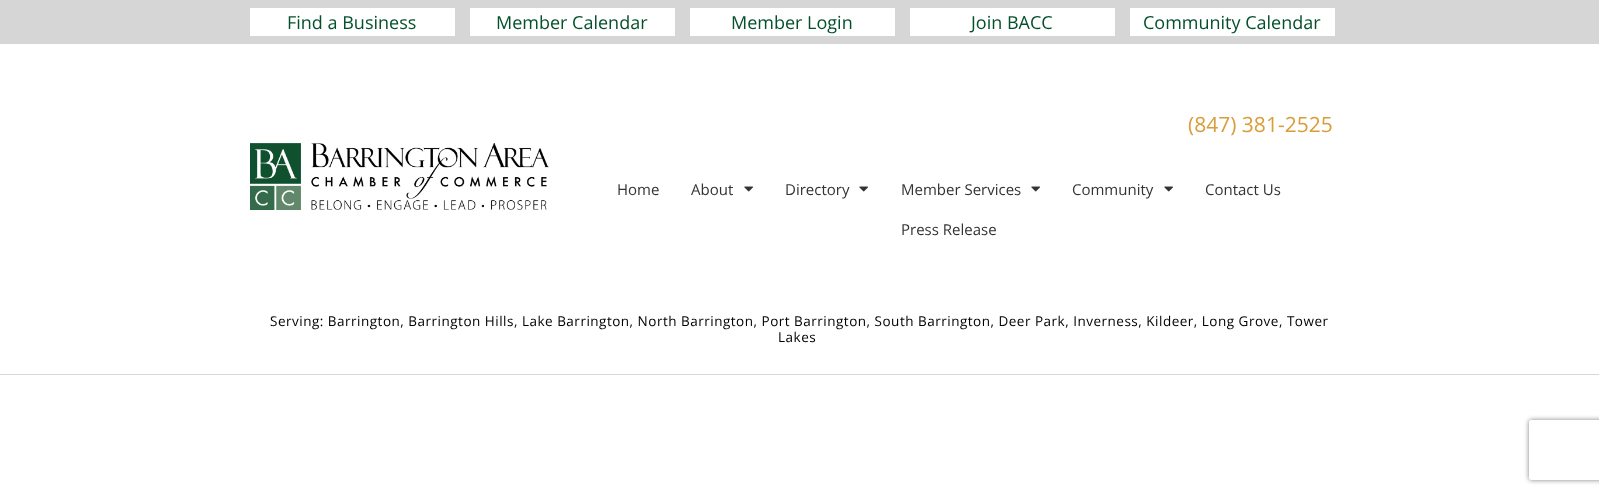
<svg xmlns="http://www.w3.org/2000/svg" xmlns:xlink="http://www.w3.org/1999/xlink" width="1599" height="494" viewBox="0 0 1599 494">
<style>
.cls-1{font:18px Open Sans;fill:#05502c}
.cls-2{font:21px Open Sans;fill:#d99d3b}
.cls-3{font:15px Open Sans;fill:#333333}
.cls-4{font:13.5px Open Sans;letter-spacing:0.5px;fill:#000000}
</style>
<defs>
<clipPath id="clip1"><path d="M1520 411H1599V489H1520ZM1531 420H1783C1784 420 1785 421 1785 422V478C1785 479 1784 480 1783 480H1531C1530 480 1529 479 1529 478V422C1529 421 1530 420 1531 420Z" clip-rule="evenodd"/></clipPath>
</defs>
<rect width="100%" height="100%" fill="#ffffff"/>
<rect fill="#d6d6d6" x="0" y="0" width="1599" height="44"/>
<rect fill="#ffffff" x="250" y="8" width="205" height="28"/>
<rect fill="#ffffff" x="470" y="8" width="205" height="28"/>
<rect fill="#ffffff" x="690" y="8" width="205" height="28"/>
<rect fill="#ffffff" x="910" y="8" width="205" height="28"/>
<rect fill="#ffffff" x="1130" y="8" width="205" height="28"/>
<image xlink:href="image0.png" x="250" y="143" width="299" height="67"/>
<image xlink:href="image1.png" x="744" y="186" width="9" height="6"/>
<image xlink:href="image1.png" x="859" y="186" width="9" height="6"/>
<image xlink:href="image1.png" x="1031" y="186" width="9" height="6"/>
<image xlink:href="image1.png" x="1164" y="186" width="9" height="6"/>
<rect fill="#d8d8d8" x="0" y="374" width="1599" height="1"/>
<g clip-path="url(#clip1)">
<rect fill="#808080" filter="blur(2.5px)" x="1529" y="420" width="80" height="60" rx="2"/>
</g>
<text class="cls-1" x="287" y="29">Find a Business</text>
<text class="cls-1" x="496" y="29">Member Calendar</text>
<text class="cls-1" x="731" y="29">Member Login</text>
<text class="cls-1" x="971" y="29">Join BACC</text>
<text class="cls-1" x="1143" y="29">Community Calendar</text>
<text class="cls-2" x="1188" y="132">(847) 381-2525</text>
<text class="cls-3" x="617" y="195">Home</text>
<text class="cls-3" x="691" y="195">About</text>
<text class="cls-3" x="785" y="195">Directory</text>
<text class="cls-3" x="901" y="195">Member Services</text>
<text class="cls-3" x="1072" y="195">Community</text>
<text class="cls-3" x="1205" y="195">Contact Us</text>
<text class="cls-3" x="901" y="235">Press Release</text>
<text class="cls-4" x="270" y="326">Serving: Barrington, Barrington Hills, Lake Barrington, North Barrington, Port Barrington, South Barrington, Deer Park, Inverness, Kildeer, Long Grove, Tower</text>
<text class="cls-4" x="778" y="342">Lakes</text>
</svg>
